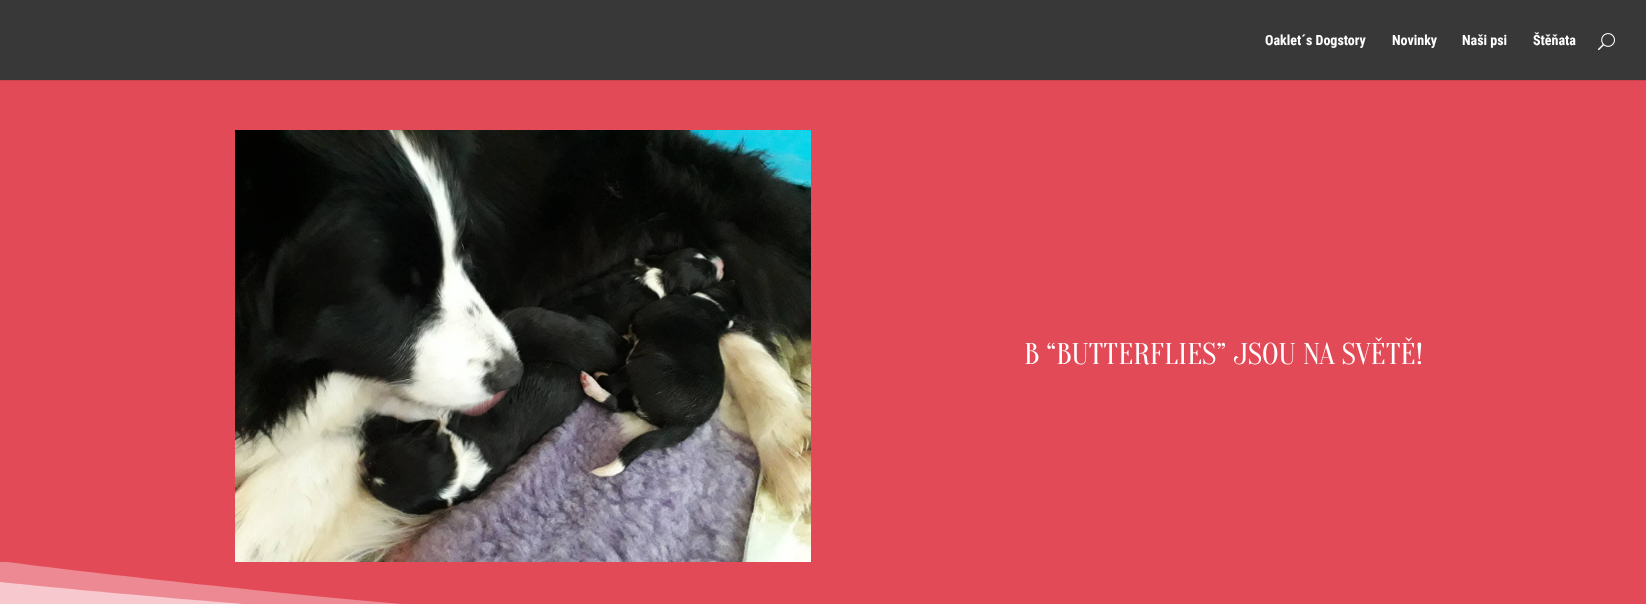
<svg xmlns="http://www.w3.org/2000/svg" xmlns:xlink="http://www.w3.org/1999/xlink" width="1646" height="604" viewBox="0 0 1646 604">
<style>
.cls-1{font:bold 14px Roboto Condensed;fill:#ffffff}
.cls-2{font:30px Oranienbaum;fill:#ffffff}
</style>
<rect width="100%" height="100%" fill="#ffffff"/>
<rect fill="#cc434f" x="0" y="80" width="1646" height="1"/>
<rect fill="#383838" x="0" y="0" width="1646" height="80"/>
<image xlink:href="image0.png" x="1598" y="33" width="17" height="18"/>
<rect fill="#e34a58" x="0" y="81" width="1646" height="481"/>
<path fill="#e34a58" fill-opacity="0.3" d="M0 561V604C0 604 737 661 1646 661V561Z"/>
<path fill="#e34a58" fill-opacity="0.5" d="M0 561V582C0 582 737 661 1646 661V561Z"/>
<path fill="#e34a58" d="M0 561C0 561 737 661 1646 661V561Z"/>
<image xlink:href="image1.png" x="235" y="130" width="576" height="432"/>
<text class="cls-1" x="1265" y="45">Oaklet´s Dogstory</text>
<text class="cls-1" x="1392" y="45">Novinky</text>
<text class="cls-1" x="1462" y="45">Naši psi</text>
<text class="cls-1" x="1533" y="45">Štěňata</text>
<text class="cls-2" x="1024" y="364">B “BUTTERFLIES” JSOU NA SVĚTĚ!</text>
</svg>
